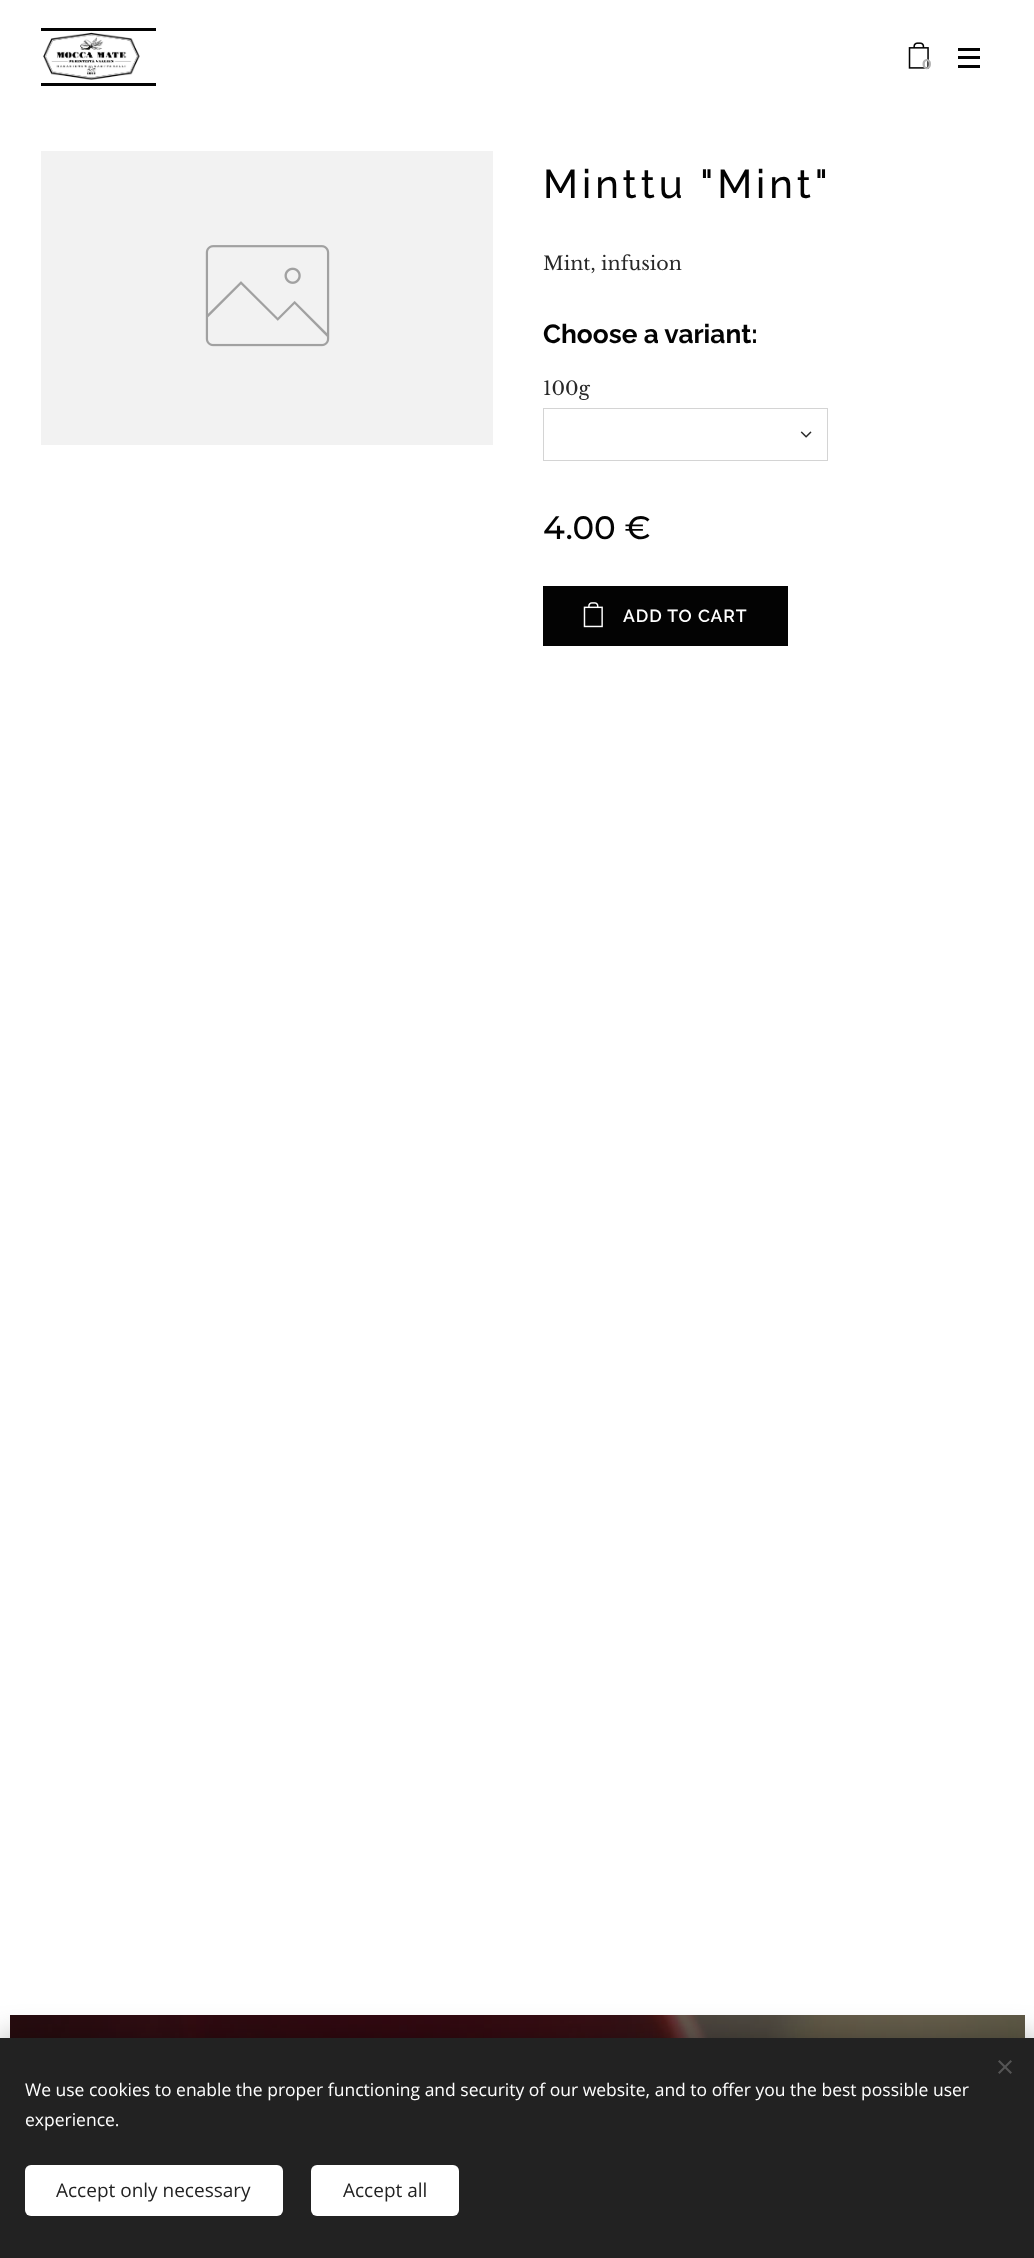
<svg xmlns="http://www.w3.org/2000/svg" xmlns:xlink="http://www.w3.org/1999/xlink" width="1034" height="2258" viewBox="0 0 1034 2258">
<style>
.cls-1{font:bold 14px Montserrat;fill:#b3b3b3}
.cls-2{font:500 40px Raleway;letter-spacing:4px;fill:#030303}
.cls-3{font:19px Libre Baskerville;fill:#282828}
.cls-4{font:bold 26.25px Raleway;fill:#030303}
.cls-5{font:500 32.5px Montserrat;fill:#030303}
.cls-6{font:600 17.5px Raleway;letter-spacing:0.9px;fill:#ffffff}
.cls-7{font:17.5px Open Sans;fill:#ffffff}
.cls-8{font:19px Open Sans;fill:#222222}
</style>
<rect width="100%" height="100%" fill="#ffffff"/>
<rect fill="#030303" x="41" y="28" width="115" height="3"/>
<rect fill="#030303" x="41" y="83" width="115" height="3"/>
<image xlink:href="image0.png" x="43" y="32" width="97" height="48"/>
<image xlink:href="image1.png" x="908" y="42" width="21" height="27"/>
<rect fill="#030303" x="958" y="56" width="22" height="3"/>
<rect fill="#030303" x="958" y="48" width="22" height="3"/>
<rect fill="#030303" x="958" y="65" width="22" height="3"/>
<rect fill="#f2f2f2" x="41" y="151" width="452" height="294"/>
<image xlink:href="image2.png" x="205" y="245" width="125" height="102"/>
<rect fill="none" stroke="#d4d4d4" x="543.5" y="408.5" width="284" height="52"/>
<image xlink:href="image3.png" x="800" y="431" width="12" height="7"/>
<rect fill="#030303" x="543" y="586" width="245" height="60"/>
<image xlink:href="image4.png" x="583" y="602" width="20" height="26"/>
<image xlink:href="image5.png" x="10" y="2015" width="1015" height="23"/>
<rect fill="#000000" fill-opacity="0.33" filter="blur(15.5px)" x="0" y="2038" width="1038" height="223"/>
<rect fill="#222222" x="0" y="2038" width="1034" height="220"/>
<path fill="#555555" d="M998 2072.5L1010.5 2060L1012 2061.5L999.5 2074Z"/>
<path fill="#555555" d="M999.5 2060L1012 2072.5L1010.5 2074L998 2061.5Z"/>
<rect fill="#ffffff" x="25" y="2165" width="258" height="51" rx="6"/>
<rect fill="#ffffff" x="311" y="2165" width="148" height="51" rx="6"/>
<text class="cls-1" x="922" y="69">0</text>
<text class="cls-2" x="543" y="198">Minttu "Mint"</text>
<text class="cls-3" x="543" y="270">Mint, infusion</text>
<text class="cls-4" x="543" y="343">Choose a variant:</text>
<text class="cls-3" x="543" y="395">100g</text>
<text class="cls-5" x="543" y="539">4.00 €</text>
<text class="cls-6" x="623" y="622">ADD TO CART</text>
<text class="cls-7"><tspan x="25" y="2096">We use cookies to enable the proper functioning and security of our website, and to offer you the best possible user</tspan><tspan x="25" y="2126">experience.</tspan></text>
<text class="cls-8" x="56" y="2197">Accept only necessary</text>
<text class="cls-8" x="343" y="2197">Accept all</text>
</svg>
